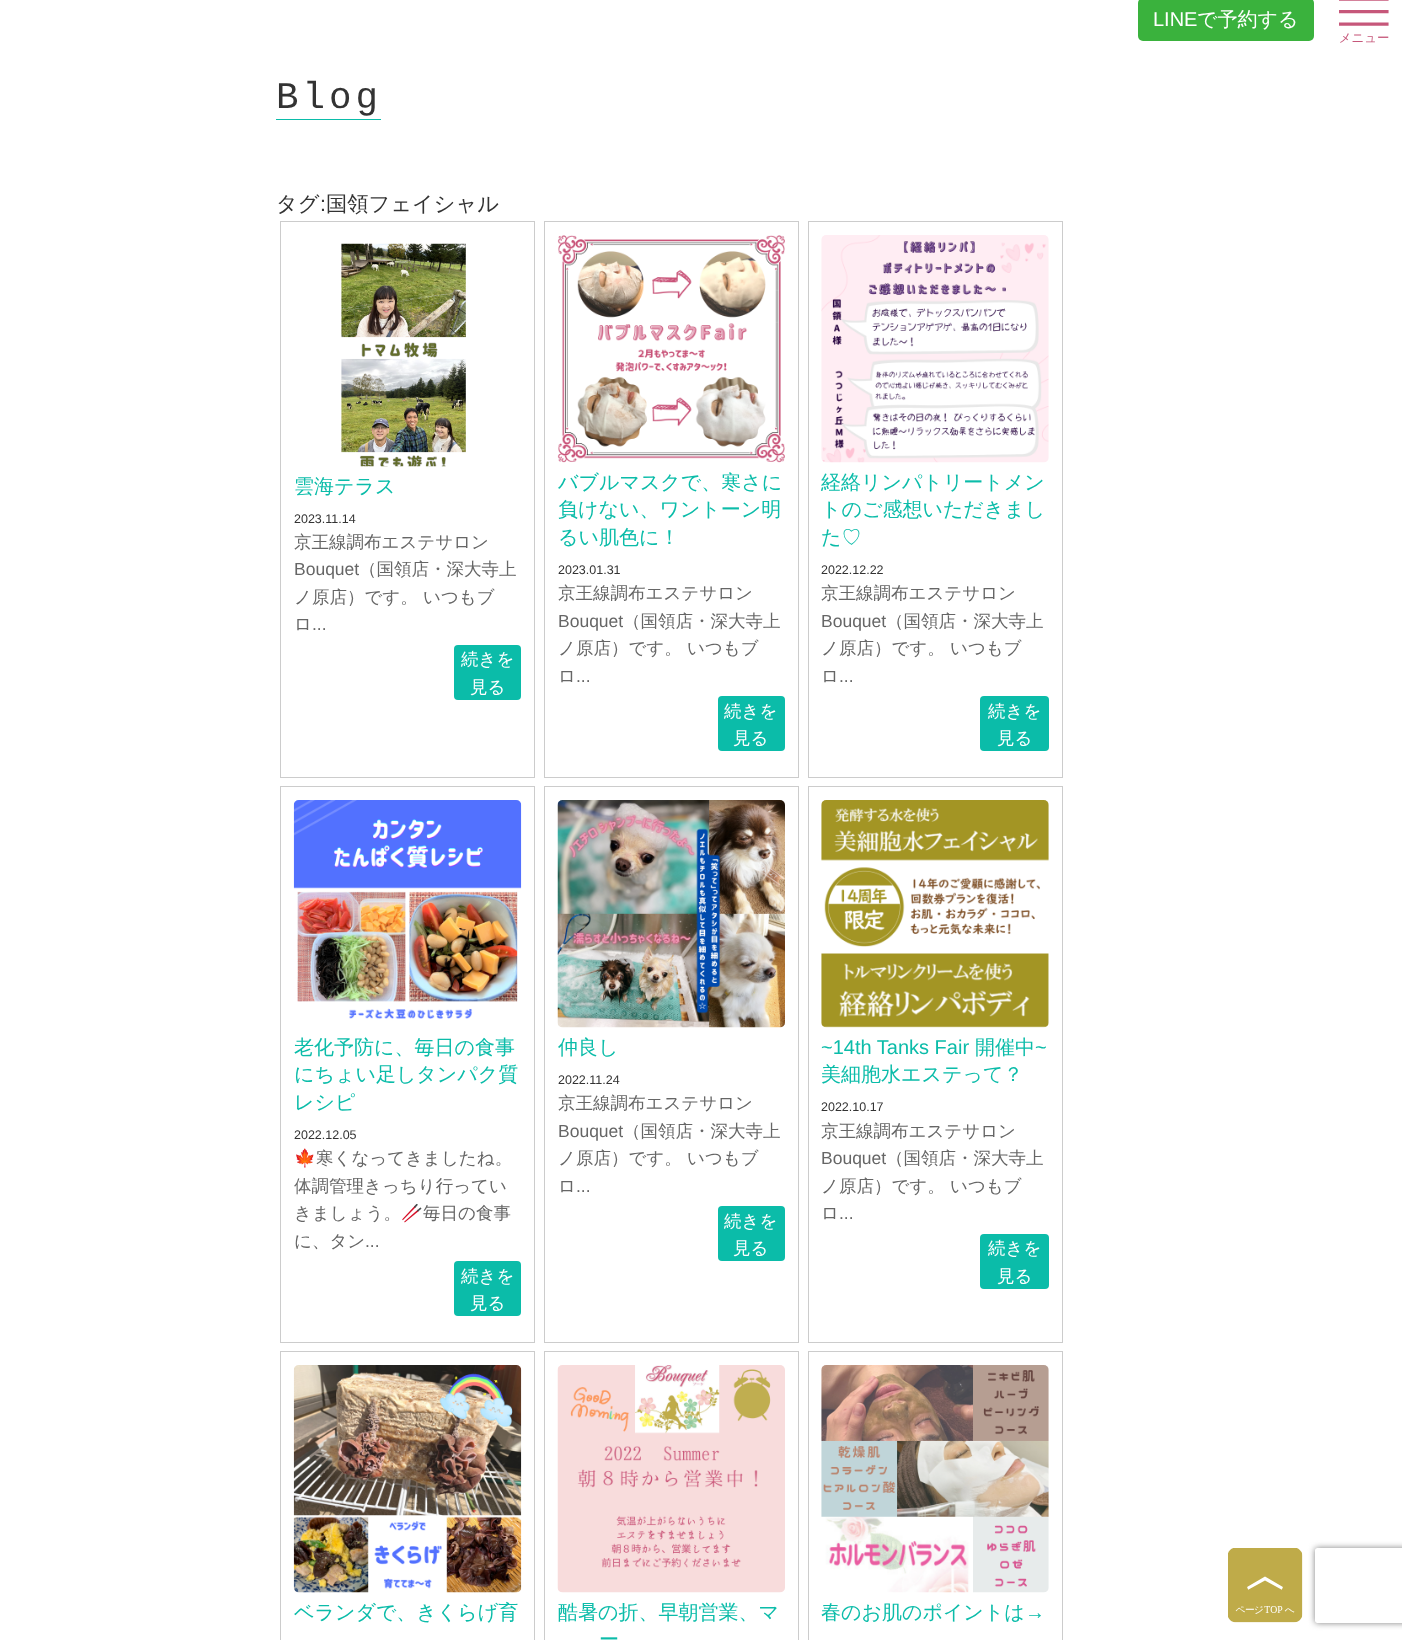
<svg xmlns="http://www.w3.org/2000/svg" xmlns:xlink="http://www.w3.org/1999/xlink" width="1402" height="1640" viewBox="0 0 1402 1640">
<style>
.cls-1{font:20px Liberation Sans;fill:#ffffff}
.cls-2{font:500 20px WenQuanYi Zen Hei;fill:#ffffff}
.cls-3{font:37.5px Liberation Mono;letter-spacing:4px;fill:#333333}
.cls-4{font:500 21.25px WenQuanYi Zen Hei;fill:#333333}
.cls-5{font:21.25px Liberation Sans;fill:#333333}
.cls-6{font:500 20px WenQuanYi Zen Hei;fill:#0bbca9}
.cls-7{font:12.5px Liberation Sans;fill:#333333}
.cls-8{font:500 17.5px WenQuanYi Zen Hei;fill:#666666}
.cls-9{font:17.5px Liberation Sans;fill:#666666}
.cls-10{font:500 17.5px WenQuanYi Zen Hei;fill:#ffffff}
.cls-11{font:17.5px Noto Color Emoji;fill:#666666}
.cls-12{font:20px Liberation Sans;fill:#0bbca9}
</style>
<defs>
<clipPath id="clip1"><path d="M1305 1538H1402V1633H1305ZM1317.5 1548H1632.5C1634 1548 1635 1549 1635 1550.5V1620.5C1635 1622 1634 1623 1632.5 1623H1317.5C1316 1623 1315 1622 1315 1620.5V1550.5C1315 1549 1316 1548 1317.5 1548Z" clip-rule="evenodd"/></clipPath>
</defs>
<rect width="100%" height="100%" fill="#ffffff"/>
<rect fill="#3ab23d" x="1138" y="-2" width="176" height="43" rx="5"/>
<image xlink:href="image0.png" x="1339" y="0" width="50" height="43"/>
<rect fill="#0bbca9" x="276" y="119" width="105" height="1"/>
<rect fill="none" stroke="#cccccc" x="280.5" y="221.5" width="254" height="556"/>
<image xlink:href="image1.png" x="341" y="243" width="125" height="224"/>
<rect fill="#0bbca9" x="454" y="645" width="67" height="55" rx="4"/>
<rect fill="none" stroke="#cccccc" x="544.5" y="221.5" width="254" height="556"/>
<image xlink:href="image2.png" x="557" y="235" width="228" height="228"/>
<rect fill="#0bbca9" x="718" y="696" width="67" height="55" rx="4"/>
<rect fill="none" stroke="#cccccc" x="808.5" y="221.5" width="254" height="556"/>
<image xlink:href="image3.png" x="821" y="235" width="228" height="228"/>
<rect fill="#0bbca9" x="980" y="696" width="69" height="55" rx="4"/>
<rect fill="none" stroke="#cccccc" x="280.5" y="786.5" width="254" height="556"/>
<image xlink:href="image4.png" x="293" y="800" width="229" height="219"/>
<rect fill="#0bbca9" x="454" y="1261" width="67" height="55" rx="4"/>
<rect fill="none" stroke="#cccccc" x="544.5" y="786.5" width="254" height="556"/>
<image xlink:href="image5.png" x="557" y="800" width="228" height="228"/>
<rect fill="#0bbca9" x="718" y="1206" width="67" height="55" rx="4"/>
<rect fill="none" stroke="#cccccc" x="808.5" y="786.5" width="254" height="556"/>
<image xlink:href="image6.png" x="821" y="800" width="228" height="228"/>
<rect fill="#0bbca9" x="980" y="1234" width="69" height="55" rx="4"/>
<rect fill="none" stroke="#cccccc" x="280.5" y="1351.5" width="254" height="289"/>
<image xlink:href="image7.png" x="293" y="1365" width="229" height="228"/>
<rect fill="none" stroke="#cccccc" x="544.5" y="1351.5" width="254" height="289"/>
<image xlink:href="image8.png" x="557" y="1365" width="228" height="228"/>
<rect fill="none" stroke="#cccccc" x="808.5" y="1351.5" width="254" height="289"/>
<image xlink:href="image9.png" x="821" y="1365" width="228" height="228"/>
<image xlink:href="image10.png" x="1228" y="1548" width="75" height="75"/>
<g clip-path="url(#clip1)">
<rect fill="#808080" filter="blur(3px)" x="1315" y="1548" width="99" height="75" rx="2.5"/>
</g>
<text class="cls-1" x="1153" y="26">LINE</text>
<text class="cls-2" x="1197" y="26">で予約する</text>
<text class="cls-3" x="276" y="108">Blog</text>
<text class="cls-4" x="276" y="211">タグ</text>
<text class="cls-5" x="320" y="211">:</text>
<text class="cls-4" x="326" y="211">国領フェイシャル</text>
<text class="cls-6" x="294" y="493">雲海テラス</text>
<text class="cls-7" x="294" y="523">2023.11.14</text>
<text class="cls-8" x="294" y="548">京王線調布エステサロン</text>
<text class="cls-9" x="294" y="575">Bouquet</text>
<text class="cls-8" x="359" y="575">（国領店・深大寺上</text>
<text class="cls-8"><tspan x="294" y="603">ノ原店）です。 いつもブ</tspan><tspan x="294" y="630">ロ</tspan></text>
<text class="cls-9" x="312" y="630">...</text>
<text class="cls-10" x="461" y="665">続きを</text>
<text class="cls-10" x="470" y="693">見る</text>
<text class="cls-6"><tspan x="558" y="489">バブルマスクで、寒さに</tspan><tspan x="558" y="516">負けない、ワントーン明</tspan><tspan x="558" y="544">るい肌色に！</tspan></text>
<text class="cls-7" x="558" y="574">2023.01.31</text>
<text class="cls-8" x="558" y="599">京王線調布エステサロン</text>
<text class="cls-9" x="558" y="627">Bouquet</text>
<text class="cls-8" x="623" y="627">（国領店・深大寺上</text>
<text class="cls-8"><tspan x="558" y="654">ノ原店）です。 いつもブ</tspan><tspan x="558" y="682">ロ</tspan></text>
<text class="cls-9" x="576" y="682">...</text>
<text class="cls-10" x="724" y="717">続きを</text>
<text class="cls-10" x="733" y="744">見る</text>
<text class="cls-6"><tspan x="821" y="489">経絡リンパトリートメン</tspan><tspan x="821" y="516">トのご感想いただきまし</tspan><tspan x="821" y="544">た♡</tspan></text>
<text class="cls-7" x="821" y="574">2022.12.22</text>
<text class="cls-8" x="821" y="599">京王線調布エステサロン</text>
<text class="cls-9" x="821" y="627">Bouquet</text>
<text class="cls-8" x="886" y="627">（国領店・深大寺上</text>
<text class="cls-8"><tspan x="821" y="654">ノ原店）です。 いつもブ</tspan><tspan x="821" y="682">ロ</tspan></text>
<text class="cls-9" x="839" y="682">...</text>
<text class="cls-10" x="988" y="717">続きを</text>
<text class="cls-10" x="997" y="744">見る</text>
<text class="cls-6"><tspan x="294" y="1054">老化予防に、毎日の食事</tspan><tspan x="294" y="1081">にちょい足しタンパク質</tspan><tspan x="294" y="1109">レシピ</tspan></text>
<text class="cls-7" x="294" y="1139">2022.12.05</text>
<text class="cls-11" x="294" y="1164">🍁</text>
<text class="cls-8" x="316" y="1164">寒くなってきましたね。</text>
<text class="cls-8"><tspan x="294" y="1192">体調管理きっちり行ってい</tspan><tspan x="294" y="1219">きましょう。</tspan></text>
<text class="cls-11" x="401" y="1219">🥢</text>
<text class="cls-8" x="423" y="1219">毎日の食事</text>
<text class="cls-8" x="294" y="1247">に、タン</text>
<text class="cls-9" x="365" y="1247">...</text>
<text class="cls-10" x="461" y="1282">続きを</text>
<text class="cls-10" x="470" y="1309">見る</text>
<text class="cls-6" x="558" y="1054">仲良し</text>
<text class="cls-7" x="558" y="1084">2022.11.24</text>
<text class="cls-8" x="558" y="1109">京王線調布エステサロン</text>
<text class="cls-9" x="558" y="1137">Bouquet</text>
<text class="cls-8" x="623" y="1137">（国領店・深大寺上</text>
<text class="cls-8"><tspan x="558" y="1164">ノ原店）です。 いつもブ</tspan><tspan x="558" y="1192">ロ</tspan></text>
<text class="cls-9" x="576" y="1192">...</text>
<text class="cls-10" x="724" y="1227">続きを</text>
<text class="cls-10" x="733" y="1254">見る</text>
<text class="cls-12" x="821" y="1054">~14th Tanks Fair</text>
<text class="cls-6" x="975" y="1054">開催中</text>
<text class="cls-12" x="1035" y="1054">~</text>
<text class="cls-6" x="821" y="1081">美細胞水エステって？</text>
<text class="cls-7" x="821" y="1111">2022.10.17</text>
<text class="cls-8" x="821" y="1137">京王線調布エステサロン</text>
<text class="cls-9" x="821" y="1164">Bouquet</text>
<text class="cls-8" x="886" y="1164">（国領店・深大寺上</text>
<text class="cls-8"><tspan x="821" y="1192">ノ原店）です。 いつもブ</tspan><tspan x="821" y="1219">ロ</tspan></text>
<text class="cls-9" x="839" y="1219">...</text>
<text class="cls-10" x="988" y="1254">続きを</text>
<text class="cls-10" x="997" y="1282">見る</text>
<text class="cls-6" x="294" y="1619">ベランダで、きくらげ育</text>
<text class="cls-6" x="558" y="1619">酷暑の折、早朝営業、マ</text>
<text class="cls-6" x="599" y="1646">ー</text>
<text class="cls-6" x="821" y="1619">春のお肌のポイントは</text>
<text class="cls-12" x="1025" y="1619">→</text>
</svg>
